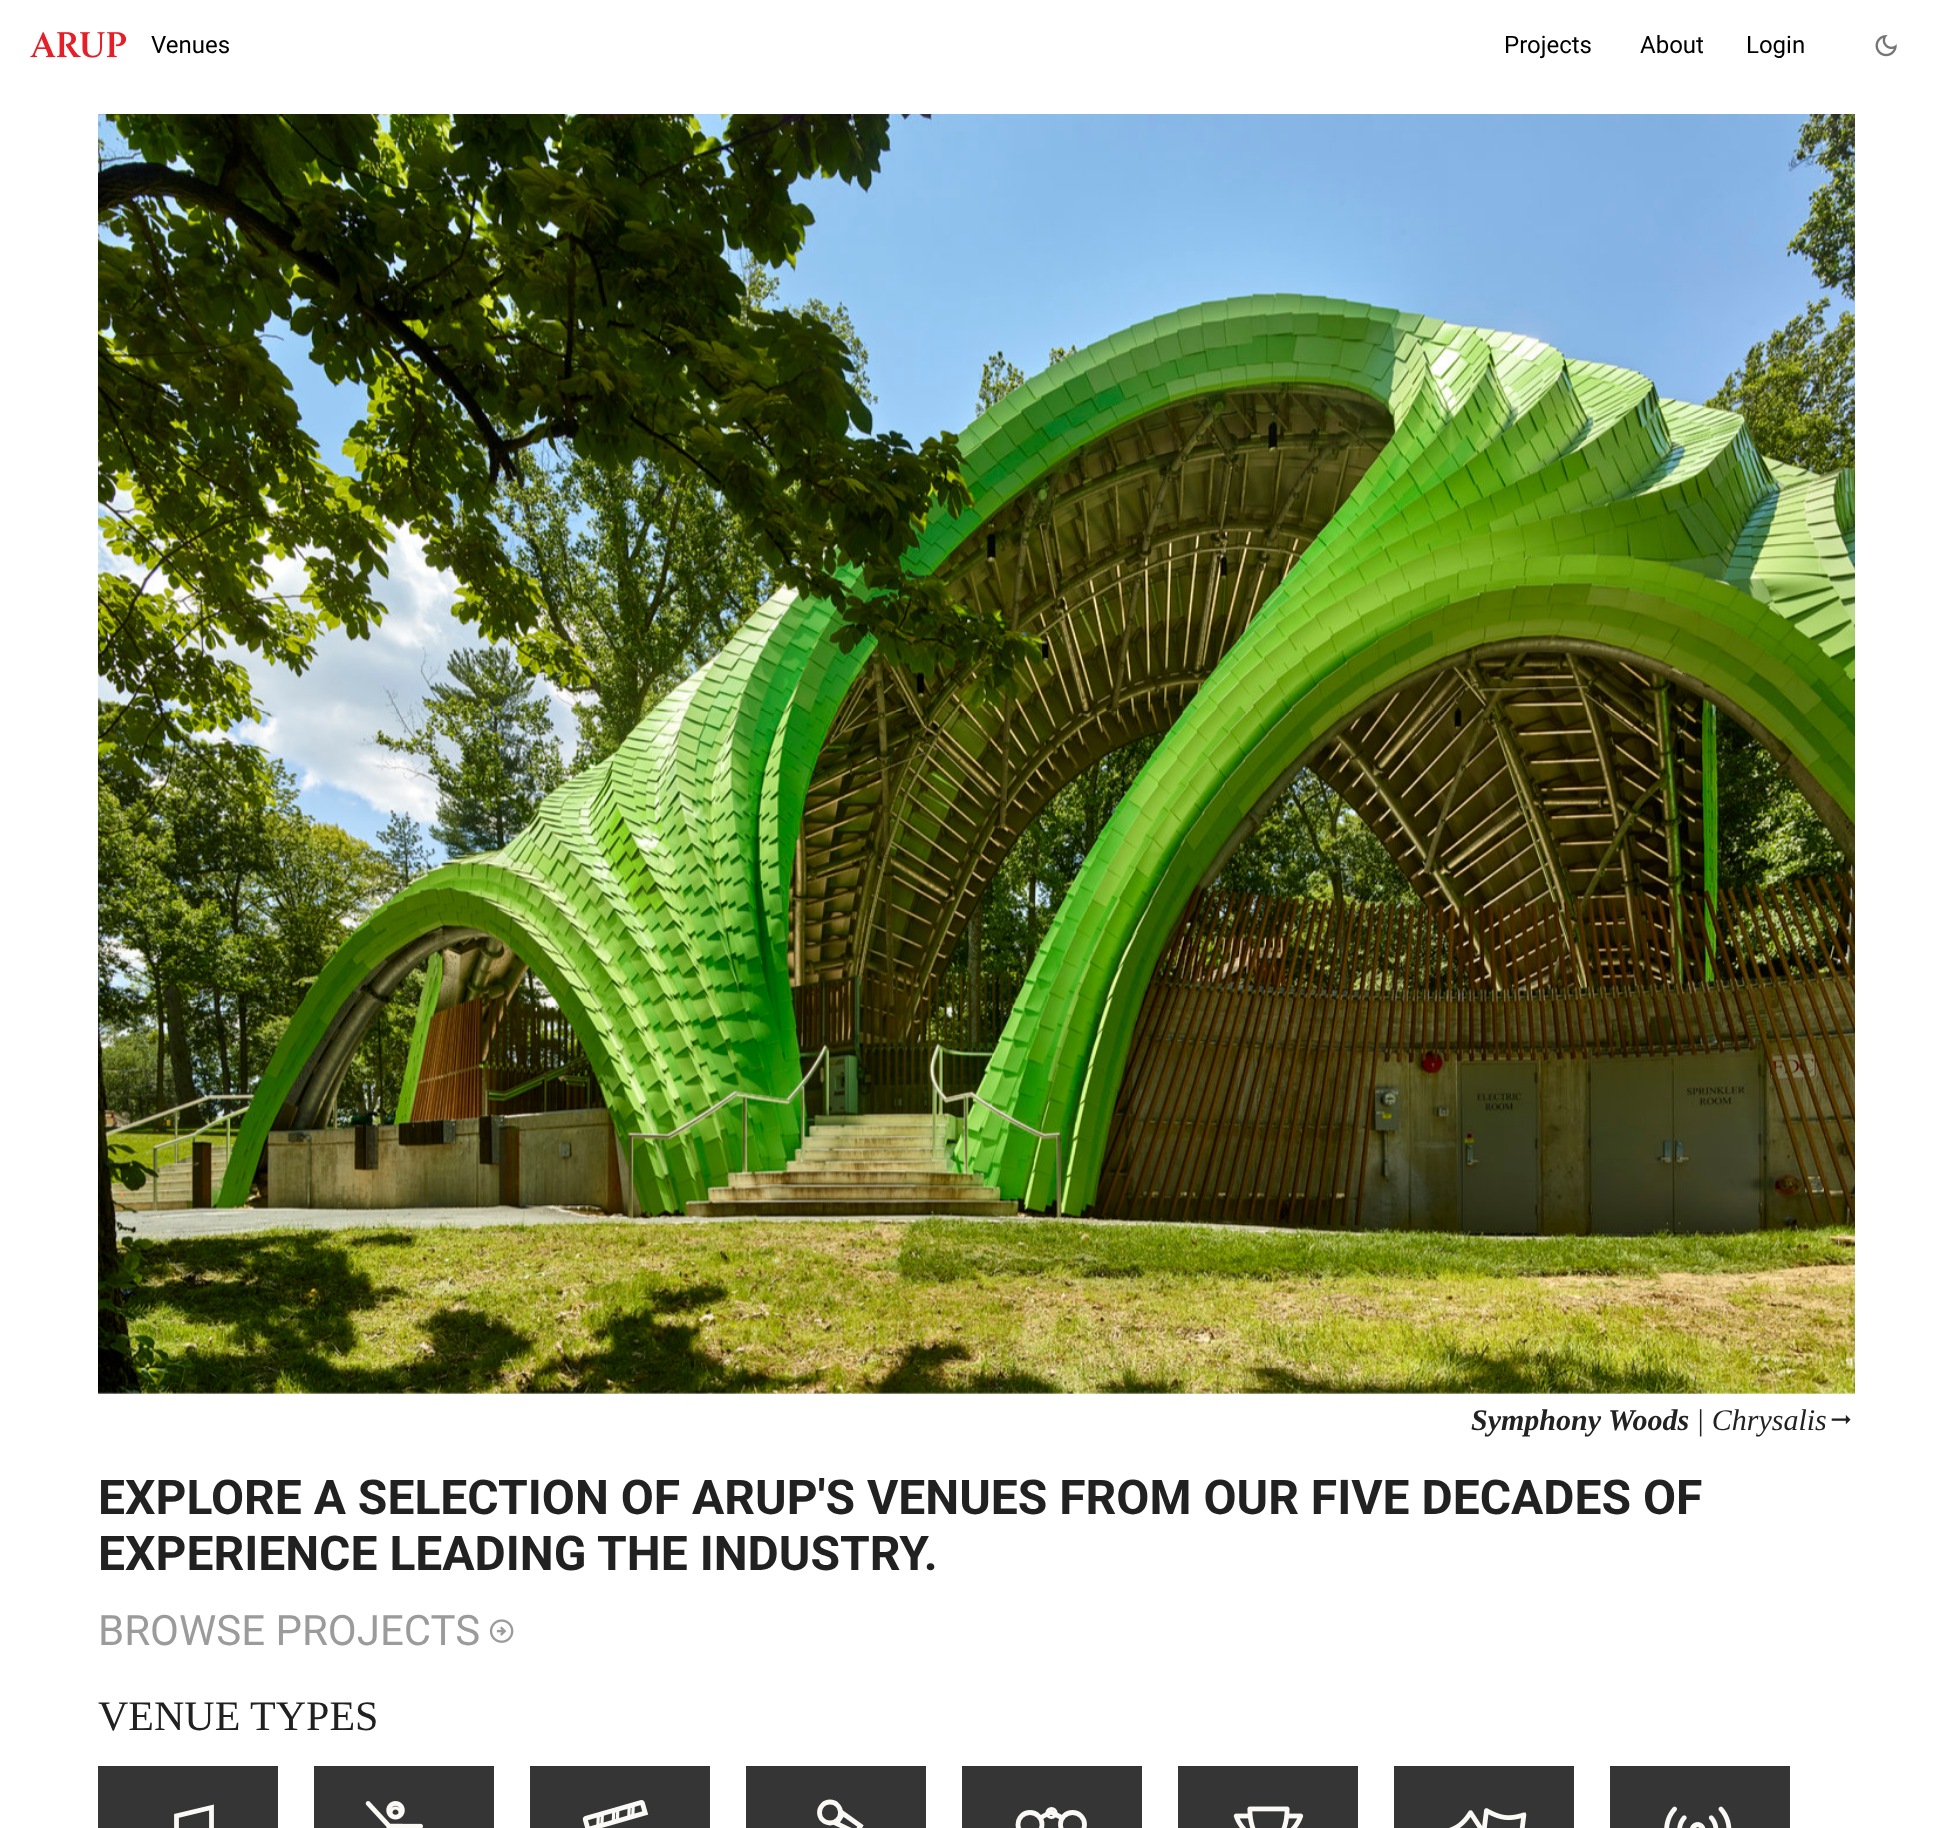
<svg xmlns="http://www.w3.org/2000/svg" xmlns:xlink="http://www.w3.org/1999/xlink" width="1953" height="1828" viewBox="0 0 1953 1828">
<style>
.cls-1{font:24px Roboto;fill:#000000}
.cls-2{font:italic bold 30px Liberation Serif;fill:#212121}
.cls-3{font:italic 30px Liberation Serif;fill:#212121}
.cls-4{font:bold 48px Roboto;fill:#212121}
.cls-5{font:42px Roboto;fill:#9b9b9b}
.cls-6{font:42px Liberation Serif;fill:#212121}
</style>
<rect width="100%" height="100%" fill="#ffffff"/>
<image xlink:href="image0.png" x="30" y="32" width="97" height="26"/>
<image xlink:href="image1.png" x="1875" y="35" width="22" height="22"/>
<image xlink:href="image2.png" x="98" y="114" width="1757" height="1280"/>
<image xlink:href="image3.png" x="1831" y="1415" width="20" height="10"/>
<image xlink:href="image4.png" x="489" y="1619" width="25" height="24"/>
<rect fill="#353535" x="98" y="1766" width="180" height="62"/>
<path fill="none" stroke="#faf9f6" stroke-width="4.8" stroke-linecap="square" d="M211.5 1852.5V1807.5L176.5 1816V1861.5"/>
<rect fill="#353535" x="314" y="1766" width="180" height="62"/>
<image xlink:href="image5.png" x="365" y="1801" width="58" height="27"/>
<rect fill="#353535" x="530" y="1766" width="180" height="62"/>
<image xlink:href="image6.png" x="582" y="1800" width="67" height="28"/>
<rect fill="#353535" x="746" y="1766" width="180" height="62"/>
<circle fill="none" stroke="#faf9f6" stroke-width="4.8" cx="830" cy="1812.5" r="10.5"/>
<path fill="none" stroke="#faf9f6" stroke-width="4.8" d="M836.5 1823.5L856.5 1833L860.5 1826L843 1813.5Z"/>
<rect fill="#353535" x="962" y="1766" width="180" height="62"/>
<circle fill="none" stroke="#faf9f6" stroke-width="4.8" cx="1030" cy="1824.5" r="12"/>
<circle fill="none" stroke="#faf9f6" stroke-width="4.8" cx="1072.5" cy="1824.5" r="12"/>
<path fill="none" stroke="#faf9f6" stroke-width="4.8" d="M1041 1817.5L1051 1812L1061.5 1817.5"/>
<circle fill="none" stroke="#faf9f6" stroke-width="3.2" cx="1051.5" cy="1813" r="4.5"/>
<rect fill="#353535" x="1178" y="1766" width="180" height="62"/>
<image xlink:href="image7.png" x="1233" y="1806" width="71" height="22"/>
<rect fill="#353535" x="1394" y="1766" width="180" height="62"/>
<image xlink:href="image8.png" x="1449" y="1808" width="78" height="20"/>
<rect fill="#353535" x="1610" y="1766" width="180" height="62"/>
<image xlink:href="image9.png" x="1664" y="1806" width="68" height="22"/>
<text class="cls-1" x="151" y="53">Venues</text>
<text class="cls-1" x="1504" y="53">Projects</text>
<text class="cls-1" x="1640" y="53">About</text>
<text class="cls-1" x="1746" y="53">Login</text>
<text class="cls-2" x="1471" y="1430">Symphony Woods</text>
<text class="cls-3" x="1696" y="1430">| Chrysalis</text>
<text class="cls-4"><tspan x="98" y="1514">EXPLORE A SELECTION OF ARUP'S VENUES FROM OUR FIVE DECADES OF</tspan><tspan x="98" y="1570">EXPERIENCE LEADING THE INDUSTRY.</tspan></text>
<text class="cls-5" x="98" y="1645">BROWSE PROJECTS</text>
<text class="cls-6" x="98" y="1730">VENUE TYPES</text>
</svg>
